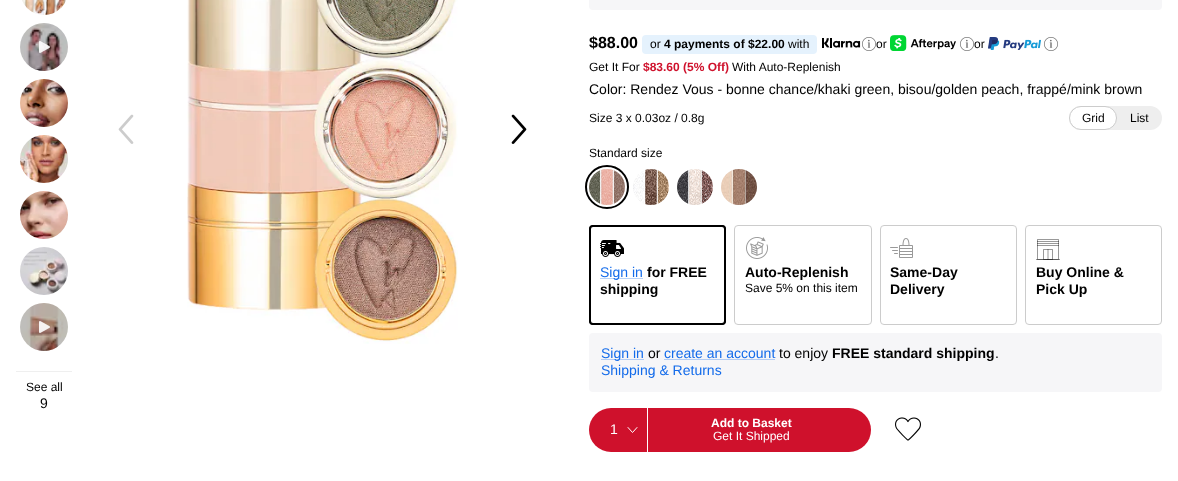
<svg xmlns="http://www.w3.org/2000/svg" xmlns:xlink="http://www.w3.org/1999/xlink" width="1178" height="481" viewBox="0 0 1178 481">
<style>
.cls-1{font:bold 16px Liberation Sans;fill:#000000}
.cls-2{font:12px Liberation Sans;fill:#000000}
.cls-3{font:bold 12px Liberation Sans;fill:#000000}
.cls-4{font:bold 12px Liberation Sans;fill:#cf112c}
.cls-5{font:14px Liberation Sans;fill:#000000}
.cls-6{font:14px Liberation Sans;fill:#136bea}
.cls-7{font:bold 14px Liberation Sans;fill:#000000}
.cls-8{font:14px Liberation Sans;fill:#ffffff}
.cls-9{font:bold 12px Liberation Sans;fill:#ffffff}
.cls-10{font:12px Liberation Sans;fill:#ffffff}
</style>
<rect width="100%" height="100%" fill="#ffffff"/>
<rect fill="#f6f6f8" x="589" y="-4" width="573" height="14" rx="4"/>
<rect fill="#e5f2fd" x="642" y="35" width="175" height="19" rx="4"/>
<image xlink:href="image0.png" x="822" y="38" width="39" height="10"/>
<image xlink:href="image1.png" x="862" y="37" width="14" height="14"/>
<image xlink:href="image2.png" x="890" y="35" width="66" height="16"/>
<image xlink:href="image1.png" x="960" y="37" width="14" height="14"/>
<image xlink:href="image3.png" x="988" y="37" width="53" height="13"/>
<image xlink:href="image1.png" x="1044" y="37" width="14" height="14"/>
<image xlink:href="image4.png" x="118" y="114" width="16" height="30"/>
<image xlink:href="image5.png" x="187" y="0" width="271" height="344"/>
<image xlink:href="image6.png" x="511" y="114" width="16" height="30"/>
<image xlink:href="image7.png" x="22" y="0" width="44" height="15"/>
<image xlink:href="image9.png" x="24" y="23" width="44" height="48"/>
<circle fill="#000000" fill-opacity="0.25" cx="44" cy="47" r="24"/>
<image xlink:href="image8.png" x="39" y="41" width="11" height="12"/>
<image xlink:href="image10.png" x="20" y="79" width="48" height="48"/>
<image xlink:href="image11.png" x="20" y="135" width="48" height="48"/>
<image xlink:href="image12.png" x="20" y="191" width="48" height="48"/>
<image xlink:href="image13.png" x="20" y="247" width="48" height="48"/>
<image xlink:href="image14.png" x="20" y="303" width="48" height="48"/>
<circle fill="#000000" fill-opacity="0.25" cx="44" cy="327" r="24"/>
<image xlink:href="image15.png" x="39" y="321" width="11" height="12"/>
<rect fill="#efefef" x="16" y="371" width="56" height="1"/>
<rect fill="#eeeeee" x="1069" y="106" width="93" height="24" rx="12"/>
<rect fill="#ffffff" stroke="#cccccc" x="1069.5" y="106.5" width="47" height="23" rx="11.5"/>
<circle fill="none" stroke="#000000" stroke-width="2" cx="607" cy="187" r="21"/>
<image xlink:href="image16.png" x="589" y="169" width="36" height="36"/>
<image xlink:href="image17.png" x="633" y="169" width="36" height="36"/>
<image xlink:href="image18.png" x="677" y="169" width="36" height="36"/>
<image xlink:href="image19.png" x="721" y="169" width="36" height="36"/>
<rect fill="none" stroke="#000000" x="589.5" y="225.5" width="136" height="99" rx="3.5"/>
<image xlink:href="image20.png" x="600" y="240" width="24" height="17"/>
<rect fill="#b8d3f9" x="600" y="278" width="43" height="1"/>
<rect fill="none" stroke="#000000" stroke-width="2" x="590" y="226" width="135" height="98" rx="3"/>
<rect fill="#f6f6f8" x="589" y="333" width="573" height="59" rx="4"/>
<rect fill="#b2ccf4" x="601" y="359" width="43" height="1"/>
<rect fill="#b2ccf4" x="664" y="359" width="111" height="1"/>
<rect fill="none" stroke="#cccccc" x="734.5" y="225.5" width="137" height="99" rx="3.5"/>
<image xlink:href="image21.png" x="746" y="237" width="22" height="22"/>
<rect fill="none" stroke="#cccccc" x="880.5" y="225.5" width="136" height="99" rx="3.5"/>
<image xlink:href="image22.png" x="890" y="238" width="23" height="20"/>
<rect fill="none" stroke="#cccccc" x="1025.5" y="225.5" width="136" height="99" rx="3.5"/>
<image xlink:href="image23.png" x="1036" y="239" width="24" height="21"/>
<rect fill="#cf112c" x="589" y="408" width="282" height="44" rx="22"/>
<rect fill="#ffffff" x="647" y="408" width="1" height="44"/>
<path fill="none" stroke="#ffffff" stroke-linecap="round" stroke-linejoin="round" d="M628 427.5L632.5 432.5L637 427.5"/>
<image xlink:href="image24.png" x="895" y="417" width="26" height="24"/>
<text class="cls-1" x="589" y="48">$88.00</text>
<text class="cls-2" x="650" y="48">or</text>
<text class="cls-3" x="664" y="48">4 payments of $22.00</text>
<text class="cls-2" x="788" y="48">with</text>
<text class="cls-2" x="876" y="48">or</text>
<text class="cls-2" x="974" y="48">or</text>
<text class="cls-2" x="589" y="71">Get It For</text>
<text class="cls-4" x="643" y="71">$83.60 (5% Off)</text>
<text class="cls-2" x="732" y="71">With Auto-Replenish</text>
<text class="cls-2" x="26" y="391">See all</text>
<text class="cls-5" x="40" y="408">9</text>
<text class="cls-5" x="589" y="94">Color: Rendez Vous - bonne chance/khaki green, bisou/golden peach, frappé/mink brown</text>
<text class="cls-2" x="589" y="122">Size 3 x 0.03oz / 0.8g</text>
<text class="cls-2" x="1082" y="122">Grid</text>
<text class="cls-2" x="1130" y="122">List</text>
<text class="cls-2" x="589" y="157">Standard size</text>
<text class="cls-6" x="600" y="277">Sign in</text>
<text class="cls-7" x="647" y="277">for FREE</text>
<text class="cls-7" x="600" y="294">shipping</text>
<text class="cls-6" x="601" y="358">Sign in</text>
<text class="cls-5" x="648" y="358">or</text>
<text class="cls-6" x="664" y="358">create an account</text>
<text class="cls-5" x="779" y="358">to enjoy</text>
<text class="cls-7" x="832" y="358">FREE standard shipping</text>
<text class="cls-5" x="995" y="358">.</text>
<text class="cls-6" x="601" y="375">Shipping &amp; Returns</text>
<text class="cls-7" x="745" y="277">Auto-Replenish</text>
<text class="cls-2" x="745" y="292">Save 5% on this item</text>
<text class="cls-7"><tspan x="890" y="277">Same-Day</tspan><tspan x="890" y="294">Delivery</tspan></text>
<text class="cls-7"><tspan x="1036" y="277">Buy Online &amp;</tspan><tspan x="1036" y="294">Pick Up</tspan></text>
<text class="cls-8" x="610" y="434">1</text>
<text class="cls-9" x="711" y="427">Add to Basket</text>
<text class="cls-10" x="713" y="440">Get It Shipped</text>
</svg>
